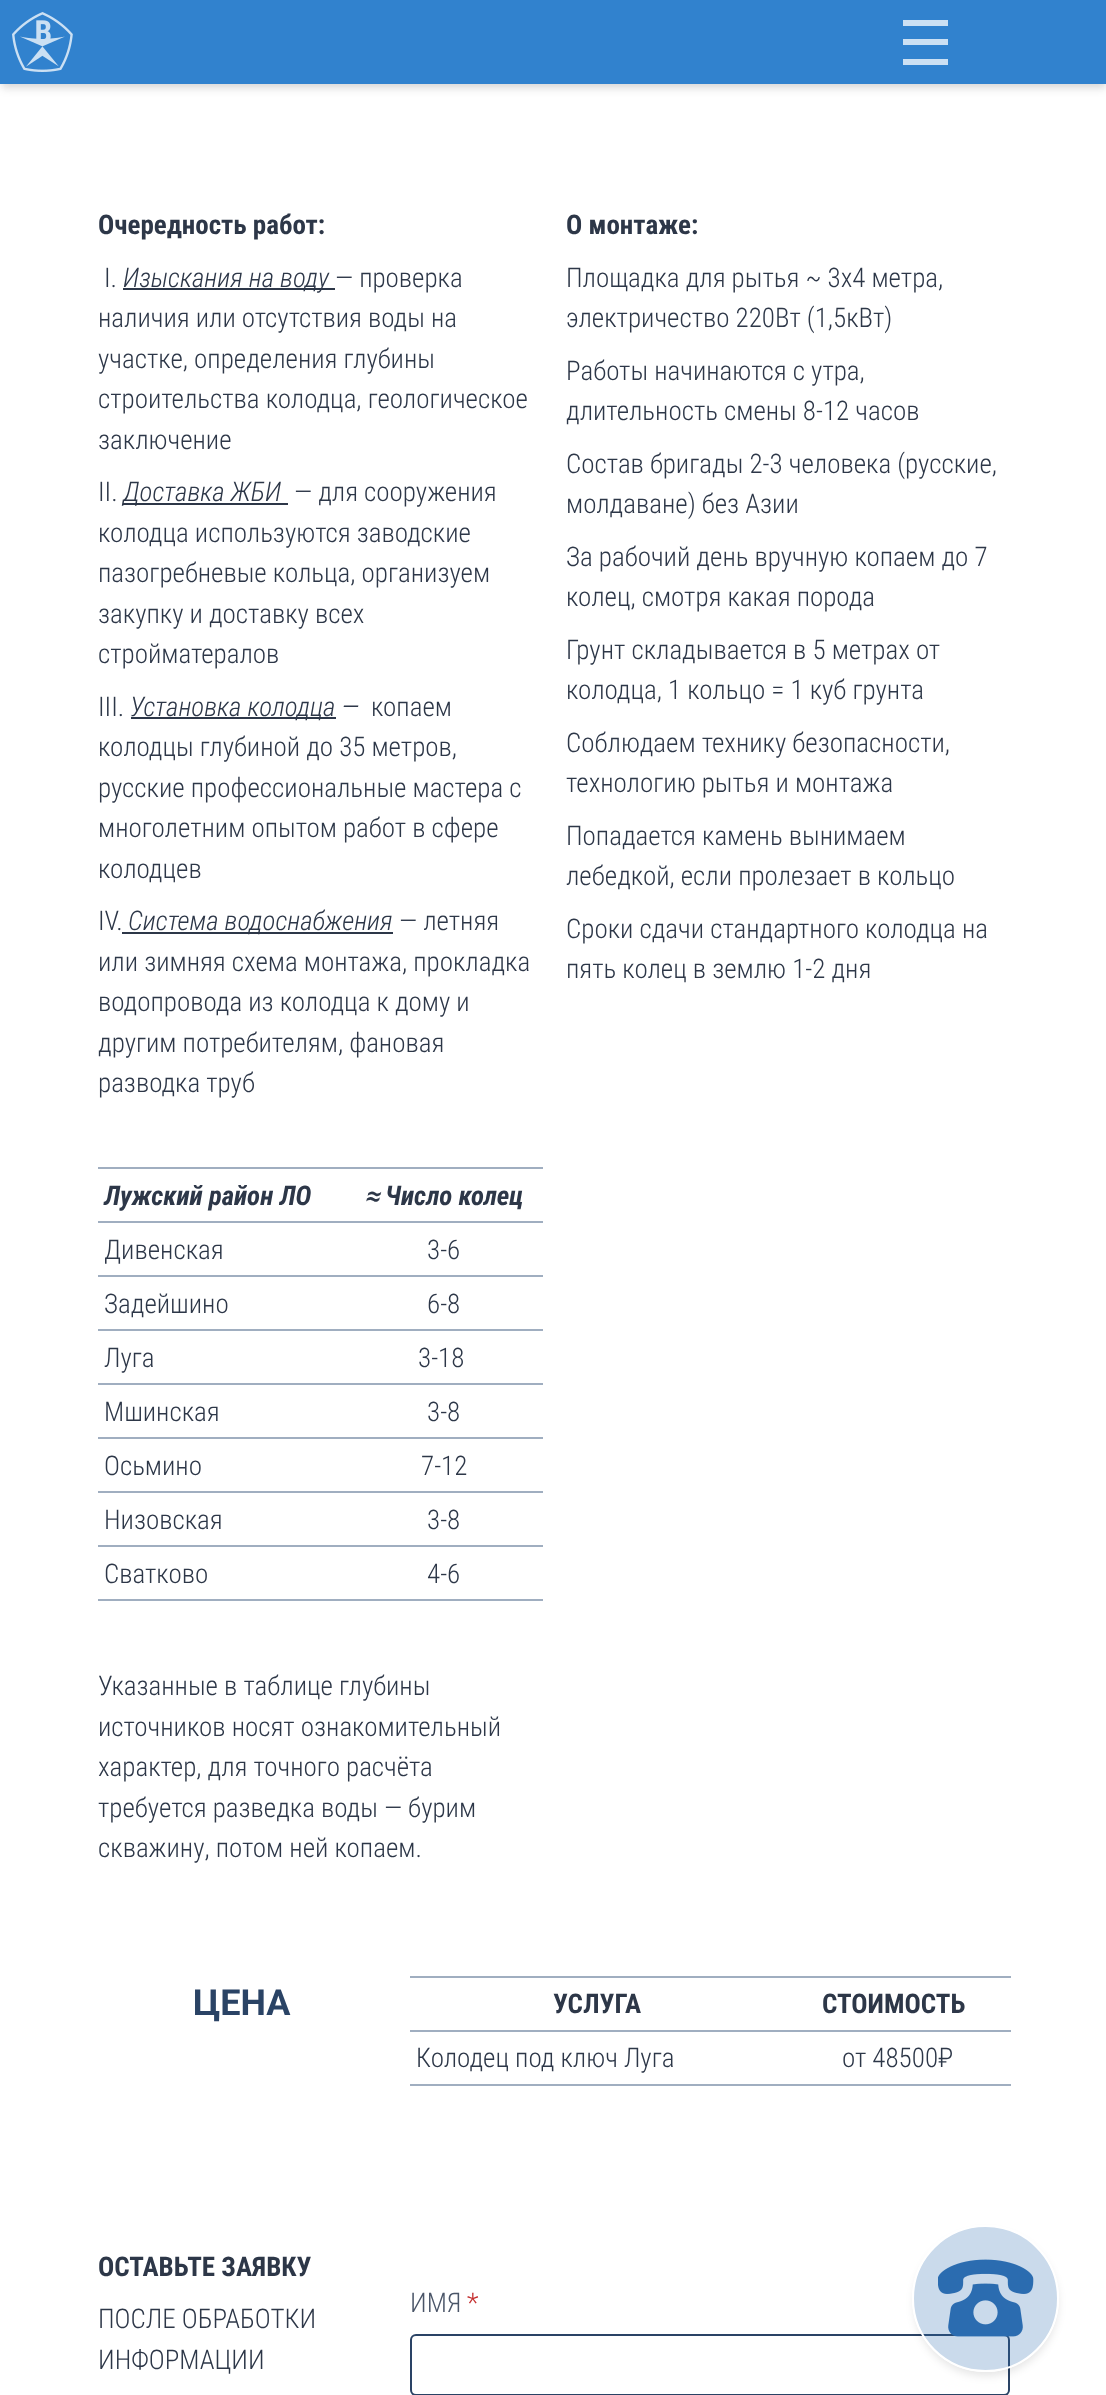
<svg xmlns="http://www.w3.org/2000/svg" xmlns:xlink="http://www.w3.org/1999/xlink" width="1106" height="2395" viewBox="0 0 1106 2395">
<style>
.cls-1{font:bold 27px Roboto Condensed;fill:#2d3748}
.cls-2{font:300 27px Roboto Condensed;fill:#2d3748}
.cls-3{font:italic 300 27px Roboto Condensed;fill:#2d3748}
.cls-4{font:italic bold 27px Roboto Condensed;fill:#2d3748}
.cls-5{font:italic bold 27px Roboto;fill:#2d3748}
.cls-6{font:bold 36px Roboto;fill:#2a4365}
.cls-7{font:300 27px Roboto Condensed;fill:#4a5568}
.cls-8{font:300 27px Roboto Condensed;fill:#c53030}
</style>
<defs>
<clipPath id="clip1"><path d="M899 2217H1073V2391H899ZM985.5 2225C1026 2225 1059 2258 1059 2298.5C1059 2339 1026 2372 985.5 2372C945 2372 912 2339 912 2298.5C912 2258 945 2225 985.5 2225Z" clip-rule="evenodd"/></clipPath>
</defs>
<rect width="100%" height="100%" fill="#ffffff"/>
<rect fill="#000000" fill-opacity="0.06" filter="blur(3px)" x="2" y="5" width="1104" height="81"/>
<rect fill="#000000" fill-opacity="0.1" filter="blur(4.5px)" x="2" y="8" width="1104" height="81"/>
<rect fill="#3182ce" x="0" y="0" width="1106" height="84"/>
<image xlink:href="image0.png" x="12" y="12" width="61" height="60"/>
<rect fill="#cce0f3" x="903" y="39" width="45" height="6"/>
<rect fill="#cce0f3" x="903" y="20" width="45" height="6"/>
<rect fill="#cce0f3" x="903" y="59" width="45" height="6"/>
<rect fill="#2d3748" x="123" y="288" width="212" height="2"/>
<rect fill="#2d3748" x="123" y="503" width="165" height="2"/>
<rect fill="#2d3748" x="131" y="717" width="205" height="2"/>
<rect fill="#2d3748" x="122" y="932" width="271" height="2"/>
<rect fill="#a0aec0" x="98" y="1167" width="445" height="2"/>
<rect fill="#a0aec0" x="98" y="1221" width="445" height="2"/>
<rect fill="#a0aec0" x="98" y="1275" width="445" height="2"/>
<rect fill="#a0aec0" x="98" y="1329" width="445" height="2"/>
<rect fill="#a0aec0" x="98" y="1383" width="445" height="2"/>
<rect fill="#a0aec0" x="98" y="1437" width="445" height="2"/>
<rect fill="#a0aec0" x="98" y="1491" width="445" height="2"/>
<rect fill="#a0aec0" x="98" y="1545" width="445" height="2"/>
<rect fill="#a0aec0" x="98" y="1599" width="445" height="2"/>
<rect fill="#a0aec0" x="410" y="1976" width="601" height="2"/>
<rect fill="#a0aec0" x="410" y="2030" width="601" height="2"/>
<rect fill="#a0aec0" x="410" y="2084" width="601" height="2"/>
<rect fill="none" stroke="#2a4365" stroke-width="2" x="411" y="2335" width="598" height="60" rx="5"/>
<g clip-path="url(#clip1)">
<rect fill="#000000" fill-opacity="0.1" filter="blur(4.5px)" x="914" y="2232" width="144" height="144" rx="72"/>
</g>
<circle fill="#2b6cb0" fill-opacity="0.25" stroke="#ffffff" stroke-width="2" cx="985.5" cy="2298.5" r="72.5"/>
<image xlink:href="image1.png" x="938" y="2259" width="96" height="78"/>
<text class="cls-1" x="98" y="234">Очередность работ:</text>
<text class="cls-2" x="104" y="287">I.</text>
<text class="cls-3" x="123" y="287">Изыскания на воду</text>
<text class="cls-2" x="335" y="287">— проверка</text>
<text class="cls-2"><tspan x="98" y="327">наличия или отсутствия воды на</tspan><tspan x="98" y="368">участке, определения глубины</tspan><tspan x="98" y="408">строительства колодца, геологическое</tspan><tspan x="98" y="449">заключение</tspan><tspan x="98" y="501">II.</tspan></text>
<text class="cls-3" x="123" y="501">Доставка ЖБИ</text>
<text class="cls-2" x="294" y="501">— для сооружения</text>
<text class="cls-2"><tspan x="98" y="542">колодца используются заводские</tspan><tspan x="98" y="582">пазогребневые кольца, организуем</tspan><tspan x="98" y="623">закупку и доставку всех</tspan><tspan x="98" y="663">стройматералов</tspan><tspan x="98" y="716">III.</tspan></text>
<text class="cls-3" x="130" y="716">Установка колодца —</text>
<text class="cls-2" x="371" y="716">копаем</text>
<text class="cls-2"><tspan x="98" y="756">колодцы глубиной до 35 метров,</tspan><tspan x="98" y="797">русские профессиональные мастера с</tspan><tspan x="98" y="837">многолетним опытом работ в сфере</tspan><tspan x="98" y="878">колодцев</tspan><tspan x="98" y="930">IV.</tspan></text>
<text class="cls-3" x="128" y="930">Система водоснабжения</text>
<text class="cls-2" x="399" y="930">— летняя</text>
<text class="cls-2"><tspan x="98" y="971">или зимняя схема монтажа, прокладка</tspan><tspan x="98" y="1011">водопровода из колодца к дому и</tspan><tspan x="98" y="1052">другим потребителям, фановая</tspan><tspan x="98" y="1092">разводка труб</tspan></text>
<text class="cls-4" x="104" y="1205">Лужский район ЛО</text>
<text class="cls-5" x="364" y="1205">≈</text>
<text class="cls-4" x="385" y="1205">Число колец</text>
<text class="cls-2" x="104" y="1259">Дивенская</text>
<text class="cls-2" x="427" y="1259">3-6</text>
<text class="cls-2" x="104" y="1313">Задейшино</text>
<text class="cls-2" x="427" y="1313">6-8</text>
<text class="cls-2" x="104" y="1367">Луга</text>
<text class="cls-2" x="418" y="1367">3-18</text>
<text class="cls-2" x="104" y="1421">Мшинская</text>
<text class="cls-2" x="427" y="1421">3-8</text>
<text class="cls-2" x="104" y="1475">Осьмино</text>
<text class="cls-2" x="421" y="1475">7-12</text>
<text class="cls-2" x="104" y="1529">Низовская</text>
<text class="cls-2" x="427" y="1529">3-8</text>
<text class="cls-2" x="104" y="1583">Сватково</text>
<text class="cls-2" x="427" y="1583">4-6</text>
<text class="cls-2"><tspan x="98" y="1695">Указанные в таблице глубины</tspan><tspan x="98" y="1736">источников носят ознакомительный</tspan><tspan x="98" y="1776">характер, для точного расчёта</tspan><tspan x="98" y="1817">требуется разведка воды — бурим</tspan><tspan x="98" y="1857">скважину, потом ней копаем.</tspan></text>
<text class="cls-1" x="566" y="234">О монтаже:</text>
<text class="cls-2"><tspan x="566" y="287">Площадка для рытья ~ 3х4 метра,</tspan><tspan x="566" y="327">электричество 220Вт (1,5кВт)</tspan><tspan x="566" y="380">Работы начинаются с утра,</tspan><tspan x="566" y="420">длительность смены 8-12 часов</tspan><tspan x="566" y="473">Состав бригады 2-3 человека (русские,</tspan><tspan x="566" y="513">молдаване) без Азии</tspan><tspan x="566" y="566">За рабочий день вручную копаем до 7</tspan><tspan x="566" y="606">колец, смотря какая порода</tspan><tspan x="566" y="659">Грунт складывается в 5 метрах от</tspan><tspan x="566" y="699">колодца, 1 кольцо = 1 куб грунта</tspan><tspan x="566" y="752">Соблюдаем технику безопасности,</tspan><tspan x="566" y="792">технологию рытья и монтажа</tspan><tspan x="566" y="845">Попадается камень вынимаем</tspan><tspan x="566" y="885">лебедкой, если пролезает в кольцо</tspan><tspan x="566" y="938">Сроки сдачи стандартного колодца на</tspan><tspan x="566" y="978">пять колец в землю 1-2 дня</tspan></text>
<text class="cls-6" x="193" y="2015">ЦЕНА</text>
<text class="cls-1" x="553" y="2013">УСЛУГА</text>
<text class="cls-1" x="822" y="2013">СТОИМОСТЬ</text>
<text class="cls-2" x="416" y="2067">Колодец под ключ Луга</text>
<text class="cls-2" x="842" y="2067">от 48500₽</text>
<text class="cls-1" x="98" y="2276">ОСТАВЬТЕ ЗАЯВКУ</text>
<text class="cls-2"><tspan x="98" y="2328">ПОСЛЕ ОБРАБОТКИ</tspan><tspan x="98" y="2369">ИНФОРМАЦИИ</tspan></text>
<text class="cls-7" x="410" y="2312">ИМЯ</text>
<text class="cls-8" x="467" y="2312">*</text>
</svg>
